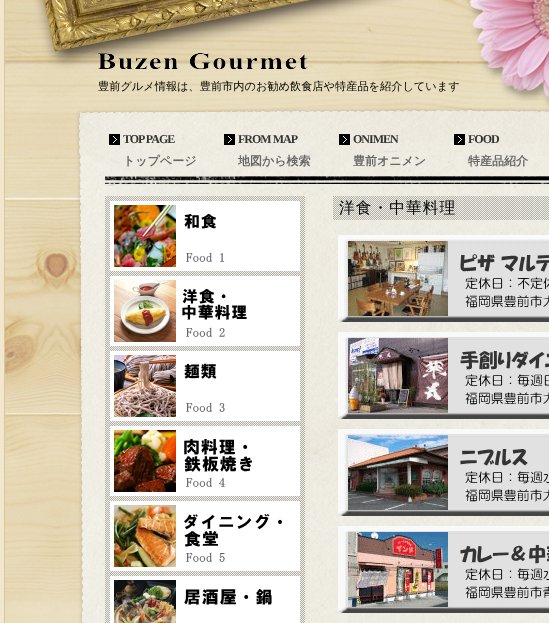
<svg xmlns="http://www.w3.org/2000/svg" xmlns:xlink="http://www.w3.org/1999/xlink" width="549" height="623" viewBox="0 0 549 623">
<style>
.cls-1{font:500 11.2px WenQuanYi Zen Hei;fill:#000000}
.cls-2{font:bold 12px Liberation Serif;letter-spacing:-1px;fill:#333333}
.cls-3{font:bold 12px WenQuanYi Zen Hei;fill:#666666}
.cls-4{font:500 15.75px WenQuanYi Zen Hei;letter-spacing:1px;fill:#000000}
</style>
<rect width="100%" height="100%" fill="#f2e6ce"/>
<image xlink:href="image0.png" x="5" y="156" width="544" height="467"/>
<rect fill="#d8c89b" x="4" y="0" width="1" height="623"/>
<image xlink:href="image1.png" x="5" y="0" width="544" height="156"/>
<image xlink:href="image2.png" x="97" y="53" width="211" height="17"/>
<image xlink:href="image3.png" x="105" y="176" width="444" height="10"/>
<image xlink:href="image4.png" x="109" y="134" width="11" height="11"/>
<image xlink:href="image4.png" x="224" y="134" width="11" height="11"/>
<image xlink:href="image4.png" x="339" y="134" width="11" height="11"/>
<image xlink:href="image4.png" x="454" y="134" width="11" height="11"/>
<image xlink:href="image5.png" x="105" y="196" width="200" height="427"/>
<image xlink:href="image6.png" x="110" y="201" width="190" height="70"/>
<image xlink:href="image7.png" x="110" y="276" width="190" height="70"/>
<image xlink:href="image8.png" x="110" y="351" width="190" height="70"/>
<image xlink:href="image9.png" x="110" y="426" width="190" height="70"/>
<image xlink:href="image10.png" x="110" y="501" width="190" height="70"/>
<image xlink:href="image11.png" x="110" y="576" width="190" height="47"/>
<image xlink:href="image12.png" x="333" y="196" width="216" height="24"/>
<image xlink:href="image13.png" x="338" y="235" width="211" height="87"/>
<image xlink:href="image14.png" x="338" y="332" width="211" height="87"/>
<image xlink:href="image15.png" x="338" y="429" width="211" height="87"/>
<image xlink:href="image16.png" x="338" y="526" width="211" height="87"/>
<text class="cls-1" x="98" y="90">豊前グルメ情報は、豊前市内のお勧め飲食店や特産品を紹介しています</text>
<text class="cls-2" x="123" y="143">TOP PAGE</text>
<text class="cls-3" x="123" y="165">トップページ</text>
<text class="cls-2" x="238" y="143">FROM MAP</text>
<text class="cls-3" x="238" y="165">地図から検索</text>
<text class="cls-2" x="353" y="143">ONIMEN</text>
<text class="cls-3" x="353" y="165">豊前オニメン</text>
<text class="cls-2" x="468" y="143">FOOD</text>
<text class="cls-3" x="468" y="165">特産品紹介</text>
<text class="cls-4" x="339" y="213">洋食・中華料理</text>
</svg>
